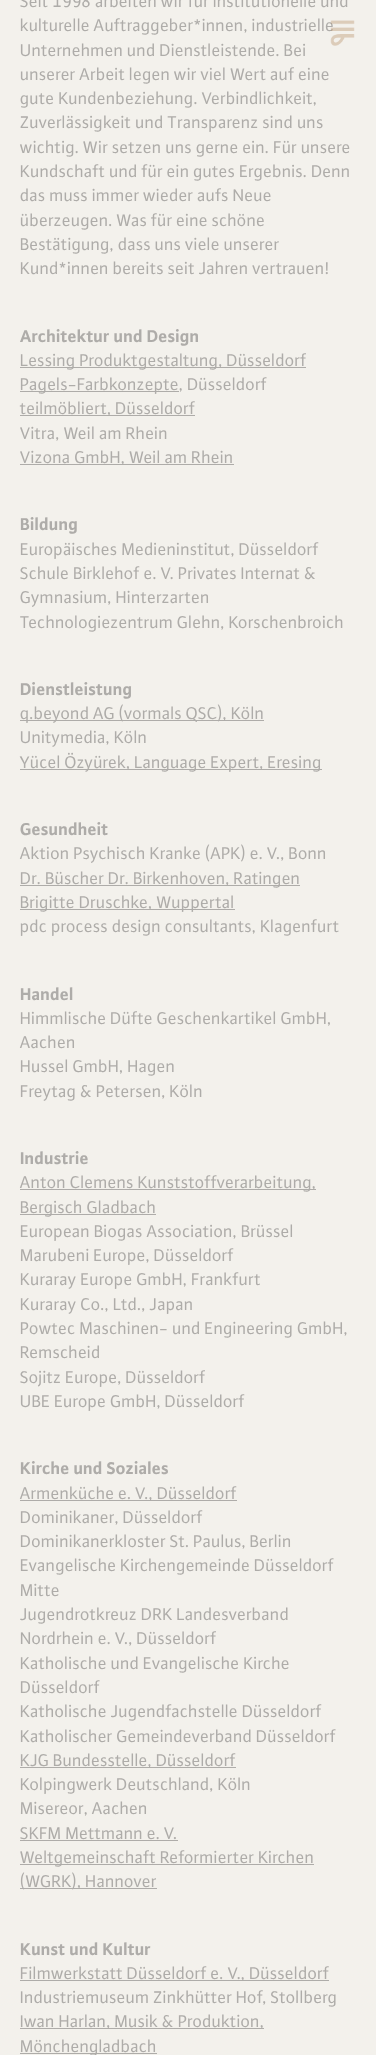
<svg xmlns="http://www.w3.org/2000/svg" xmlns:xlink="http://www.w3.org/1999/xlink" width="376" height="2055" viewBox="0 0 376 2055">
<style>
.cls-1{font:18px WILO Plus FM;fill:#aeaca9}
.cls-2{font:bold 18px WILO Plus FM;fill:#aeaca9}
</style>
<rect width="100%" height="100%" fill="#f3f1ec"/>
<rect fill="#aeaca9" x="20" y="367" width="286" height="1"/>
<rect fill="#aeaca9" x="20" y="391" width="159" height="1"/>
<rect fill="#aeaca9" x="20" y="415" width="175" height="1"/>
<rect fill="#aeaca9" x="20" y="464" width="214" height="1"/>
<rect fill="#aeaca9" x="20" y="720" width="244" height="1"/>
<rect fill="#aeaca9" x="20" y="769" width="302" height="1"/>
<rect fill="#aeaca9" x="20" y="885" width="280" height="1"/>
<rect fill="#aeaca9" x="20" y="909" width="215" height="1"/>
<rect fill="#aeaca9" x="20" y="1189" width="296" height="1"/>
<rect fill="#aeaca9" x="20" y="1214" width="136" height="1"/>
<rect fill="#aeaca9" x="20" y="1500" width="217" height="1"/>
<rect fill="#aeaca9" x="20" y="1767" width="216" height="1"/>
<rect fill="#aeaca9" x="20" y="1840" width="158" height="1"/>
<rect fill="#aeaca9" x="20" y="1864" width="294" height="1"/>
<rect fill="#aeaca9" x="20" y="1888" width="137" height="1"/>
<rect fill="#aeaca9" x="20" y="1980" width="309" height="1"/>
<rect fill="#aeaca9" x="20" y="2028" width="244" height="1"/>
<rect fill="#aeaca9" x="20" y="2053" width="137" height="1"/>
<text class="cls-1"><tspan x="20" y="7">Seit 1998 arbeiten wir für institutionelle und</tspan><tspan x="20" y="31">kulturelle Auftraggeber*innen, industrielle</tspan><tspan x="20" y="56">Unternehmen und Dienstleistende. Bei</tspan><tspan x="20" y="80">unserer Arbeit legen wir viel Wert auf eine</tspan><tspan x="20" y="104">gute Kundenbeziehung. Verbindlichkeit,</tspan><tspan x="20" y="128">Zuverlässigkeit und Transparenz sind uns</tspan><tspan x="20" y="153">wichtig. Wir setzen uns gerne ein. Für unsere</tspan><tspan x="20" y="177">Kundschaft und für ein gutes Ergebnis. Denn</tspan><tspan x="20" y="201">das muss immer wieder aufs Neue</tspan><tspan x="20" y="226">überzeugen. Was für eine schöne</tspan><tspan x="20" y="250">Bestätigung, dass uns viele unserer</tspan><tspan x="20" y="274">Kund*innen bereits seit Jahren vertrauen!</tspan></text>
<text class="cls-2" x="20" y="342">Architektur und Design</text>
<text class="cls-1"><tspan x="20" y="366">Lessing Produktgestaltung, Düsseldorf</tspan><tspan x="20" y="390">Pagels-Farbkonzepte, Düsseldorf</tspan><tspan x="20" y="414">teilmöbliert, Düsseldorf</tspan><tspan x="20" y="439">Vitra, Weil am Rhein</tspan><tspan x="20" y="463">Vizona GmbH, Weil am Rhein</tspan></text>
<text class="cls-2" x="20" y="530">Bildung</text>
<text class="cls-1"><tspan x="20" y="555">Europäisches Medieninstitut, Düsseldorf</tspan><tspan x="20" y="579">Schule Birklehof e. V. Privates Internat &amp;</tspan><tspan x="20" y="603">Gymnasium, Hinterzarten</tspan><tspan x="20" y="628">Technologiezentrum Glehn, Korschenbroich</tspan></text>
<text class="cls-2" x="20" y="695">Dienstleistung</text>
<text class="cls-1"><tspan x="20" y="719">q.beyond AG (vormals QSC), Köln</tspan><tspan x="20" y="743">Unitymedia, Köln</tspan><tspan x="20" y="768">Yücel Özyürek, Language Expert, Eresing</tspan></text>
<text class="cls-2" x="20" y="835">Gesundheit</text>
<text class="cls-1"><tspan x="20" y="859">Aktion Psychisch Kranke (APK) e. V., Bonn</tspan><tspan x="20" y="884">Dr. Büscher Dr. Birkenhoven, Ratingen</tspan><tspan x="20" y="908">Brigitte Druschke, Wuppertal</tspan><tspan x="20" y="932">pdc process design consultants, Klagenfurt</tspan></text>
<text class="cls-2" x="20" y="1000">Handel</text>
<text class="cls-1"><tspan x="20" y="1024">Himmlische Düfte Geschenkartikel GmbH,</tspan><tspan x="20" y="1048">Aachen</tspan><tspan x="20" y="1072">Hussel GmbH, Hagen</tspan><tspan x="20" y="1097">Freytag &amp; Petersen, Köln</tspan></text>
<text class="cls-2" x="20" y="1164">Industrie</text>
<text class="cls-1"><tspan x="20" y="1188">Anton Clemens Kunststoffverarbeitung,</tspan><tspan x="20" y="1213">Bergisch Gladbach</tspan><tspan x="20" y="1237">European Biogas Association, Brüssel</tspan><tspan x="20" y="1261">Marubeni Europe, Düsseldorf</tspan><tspan x="20" y="1285">Kuraray Europe GmbH, Frankfurt</tspan><tspan x="20" y="1310">Kuraray Co., Ltd., Japan</tspan><tspan x="20" y="1334">Powtec Maschinen- und Engineering GmbH,</tspan><tspan x="20" y="1358">Remscheid</tspan><tspan x="20" y="1383">Sojitz Europe, Düsseldorf</tspan><tspan x="20" y="1407">UBE Europe GmbH, Düsseldorf</tspan></text>
<text class="cls-2" x="20" y="1474">Kirche und Soziales</text>
<text class="cls-1"><tspan x="20" y="1499">Armenküche e. V., Düsseldorf</tspan><tspan x="20" y="1523">Dominikaner, Düsseldorf</tspan><tspan x="20" y="1547">Dominikanerkloster St. Paulus, Berlin</tspan><tspan x="20" y="1571">Evangelische Kirchengemeinde Düsseldorf</tspan><tspan x="20" y="1596">Mitte</tspan><tspan x="20" y="1620">Jugendrotkreuz DRK Landesverband</tspan><tspan x="20" y="1644">Nordrhein e. V., Düsseldorf</tspan><tspan x="20" y="1669">Katholische und Evangelische Kirche</tspan><tspan x="20" y="1693">Düsseldorf</tspan><tspan x="20" y="1717">Katholische Jugendfachstelle Düsseldorf</tspan><tspan x="20" y="1742">Katholischer Gemeindeverband Düsseldorf</tspan><tspan x="20" y="1766">KJG Bundesstelle, Düsseldorf</tspan><tspan x="20" y="1790">Kolpingwerk Deutschland, Köln</tspan><tspan x="20" y="1814">Misereor, Aachen</tspan><tspan x="20" y="1839">SKFM Mettmann e. V.</tspan><tspan x="20" y="1863">Weltgemeinschaft Reformierter Kirchen</tspan><tspan x="20" y="1887">(WGRK), Hannover</tspan></text>
<text class="cls-2" x="20" y="1955">Kunst und Kultur</text>
<text class="cls-1"><tspan x="20" y="1979">Filmwerkstatt Düsseldorf e. V., Düsseldorf</tspan><tspan x="20" y="2003">Industriemuseum Zinkhütter Hof, Stollberg</tspan><tspan x="20" y="2027">Iwan Harlan, Musik &amp; Produktion,</tspan><tspan x="20" y="2052">Mönchengladbach</tspan></text>
<image xlink:href="image0.png" x="330" y="20" width="25" height="26"/>
</svg>
